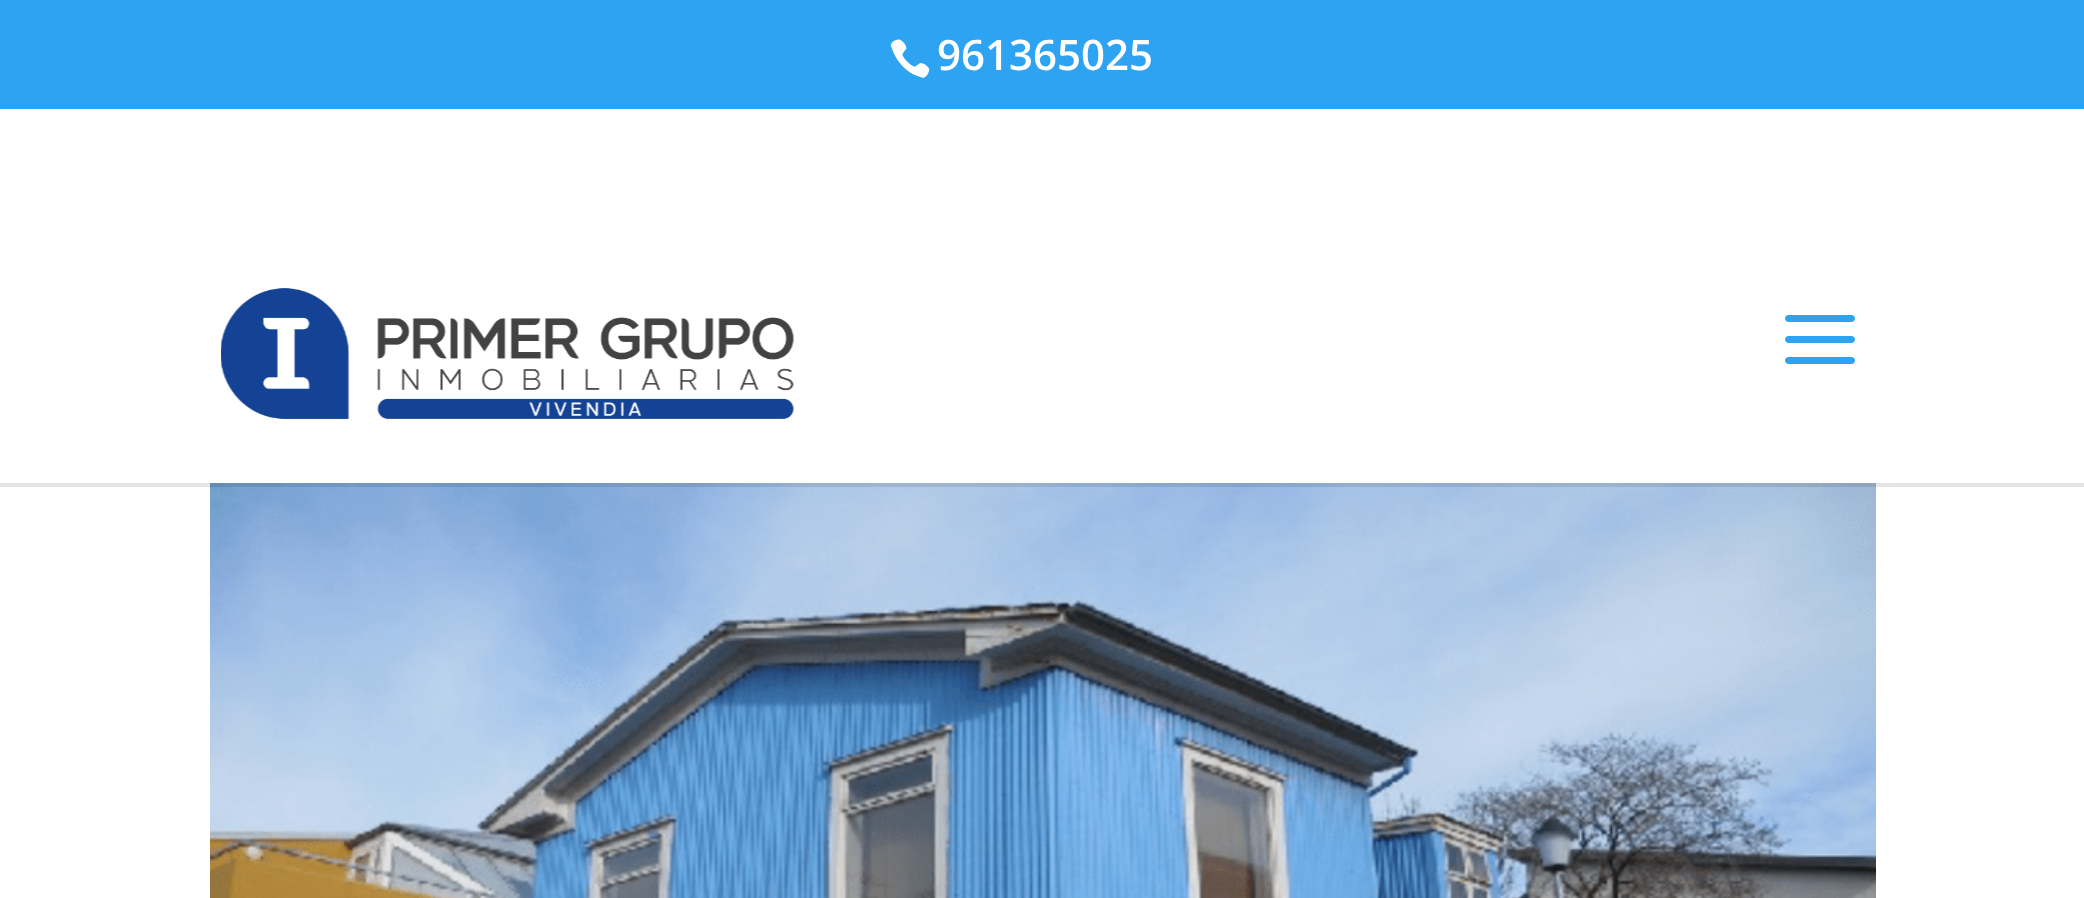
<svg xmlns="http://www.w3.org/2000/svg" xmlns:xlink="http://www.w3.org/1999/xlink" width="2084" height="898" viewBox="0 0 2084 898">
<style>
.cls-1{font:600 42px Open Sans;fill:#ffffff}
</style>
<rect width="100%" height="100%" fill="#ffffff"/>
<rect fill="#2ea3f2" x="0" y="0" width="2084" height="109"/>
<image xlink:href="image0.png" x="890" y="39" width="40" height="39"/>
<image xlink:href="image3.png" x="210" y="483" width="1666" height="415"/>
<rect fill="#000000" fill-opacity="0.1" x="0" y="483" width="2084" height="4"/>
<image xlink:href="image1.png" x="221" y="288" width="573" height="132"/>
<image xlink:href="image2.png" x="1785" y="315" width="70" height="49"/>
<text class="cls-1" x="937" y="70">961365025</text>
</svg>
